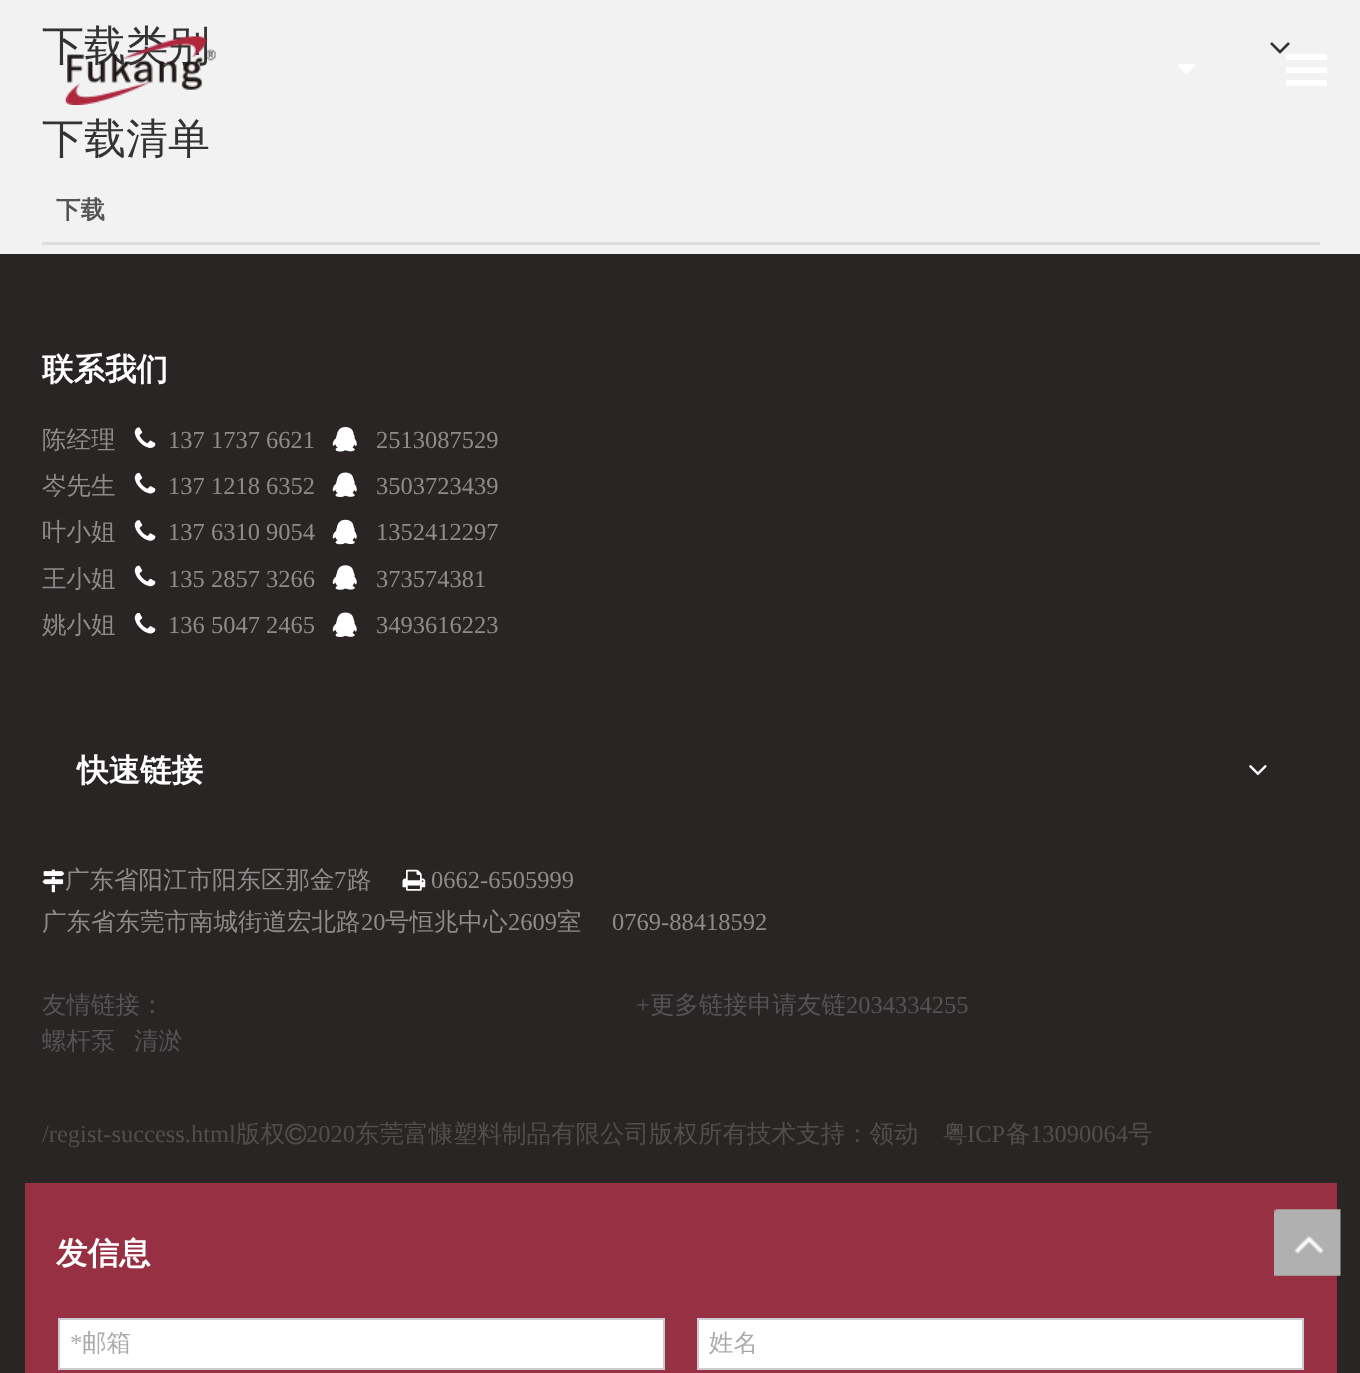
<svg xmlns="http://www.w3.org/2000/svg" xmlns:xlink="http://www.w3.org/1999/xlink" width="1360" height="1373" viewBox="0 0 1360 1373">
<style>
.cls-1{font:500 42px WenQuanYi Zen Hei;fill:#333333}
.cls-2{font:bold 24.5px WenQuanYi Zen Hei;fill:#545454}
.cls-3{font:bold 31.5px WenQuanYi Zen Hei;fill:#ffffff}
.cls-4{font:500 24.5px WenQuanYi Zen Hei;fill:#8e8b8b}
.cls-5{font:24.5px Liberation Serif;fill:#8e8b8b}
.cls-6{font:500 24.5px WenQuanYi Zen Hei;fill:#545454}
.cls-7{font:24.5px Liberation Serif;fill:#545454}
.cls-8{font:24.5px Liberation Serif;fill:#524e4e}
.cls-9{font:500 24.5px WenQuanYi Zen Hei;fill:#524e4e}
.cls-10{font:24.5px Liberation Serif;fill:#aaaaaa}
.cls-11{font:500 24.5px WenQuanYi Zen Hei;fill:#aaaaaa}
</style>
<rect width="100%" height="100%" fill="#f2f2f2"/>
<image xlink:href="image0.png" x="1270" y="42" width="20" height="12"/>
<rect fill="#dddddd" x="42" y="242" width="1278" height="3"/>
<image xlink:href="image2.png" x="1178" y="64" width="17" height="10"/>
<path fill="#ffffff" d="M1327 80V86H1286V80ZM1327 67V73H1286V67ZM1327 54V60H1286V54Z"/>
<rect fill="#292525" x="0" y="254" width="1360" height="1119"/>
<image xlink:href="image3.png" x="134" y="427" width="22" height="21"/>
<image xlink:href="image4.png" x="332" y="427" width="25" height="25"/>
<image xlink:href="image5.png" x="134" y="472" width="22" height="22"/>
<image xlink:href="image6.png" x="332" y="472" width="25" height="25"/>
<image xlink:href="image7.png" x="134" y="520" width="22" height="21"/>
<image xlink:href="image8.png" x="332" y="519" width="25" height="26"/>
<image xlink:href="image9.png" x="134" y="565" width="22" height="22"/>
<image xlink:href="image10.png" x="332" y="565" width="25" height="25"/>
<image xlink:href="image5.png" x="134" y="612" width="22" height="22"/>
<image xlink:href="image6.png" x="332" y="612" width="25" height="25"/>
<image xlink:href="image11.png" x="1249" y="765" width="18" height="11"/>
<image xlink:href="image12.png" x="42" y="869" width="23" height="24"/>
<image xlink:href="image13.png" x="402" y="869" width="24" height="22"/>
<image xlink:href="image14.png" x="285" y="1123" width="22" height="22"/>
<rect fill="#973043" x="25" y="1183" width="1312" height="190"/>
<rect fill="#ffffff" stroke="#cccccc" stroke-width="2" x="59" y="1319" width="605" height="50"/>
<rect fill="#ffffff" stroke="#cccccc" stroke-width="2" x="698" y="1319" width="605" height="50"/>
<image xlink:href="image15.png" x="1274" y="1209" width="67" height="67"/>
<text class="cls-1" x="42" y="60">下载类别</text>
<text class="cls-1" x="42" y="153">下载清单</text>
<text class="cls-2" x="56" y="218">下载</text>
<image xlink:href="image1.png" x="65" y="36" width="151" height="69"/>
<text class="cls-3" x="42" y="380">联系我们</text>
<text class="cls-4" x="42" y="448">陈经理</text>
<text class="cls-5" x="168" y="448">137 1737 6621</text>
<text class="cls-5" x="376" y="448">2513087529</text>
<text class="cls-4" x="42" y="494">岑先生</text>
<text class="cls-5" x="168" y="494">137 1218 6352</text>
<text class="cls-5" x="376" y="494">3503723439</text>
<text class="cls-4" x="42" y="540">叶小姐</text>
<text class="cls-5" x="168" y="540">137 6310 9054</text>
<text class="cls-5" x="376" y="540">1352412297</text>
<text class="cls-4" x="42" y="587">王小姐</text>
<text class="cls-5" x="168" y="587">135 2857 3266</text>
<text class="cls-5" x="376" y="587">373574381</text>
<text class="cls-4" x="42" y="633">姚小姐</text>
<text class="cls-5" x="168" y="633">136 5047 2465</text>
<text class="cls-5" x="376" y="633">3493616223</text>
<text class="cls-3" x="77" y="781">快速链接</text>
<text class="cls-4" x="65" y="888">广东省阳江市阳东区那金</text>
<text class="cls-5" x="334" y="888">7</text>
<text class="cls-4" x="347" y="888">路</text>
<text class="cls-5" x="431" y="888">0662-6505999</text>
<text class="cls-4" x="42" y="930">广东省东莞市南城街道宏北路</text>
<text class="cls-5" x="361" y="930">20</text>
<text class="cls-4" x="385" y="930">号恒兆中心</text>
<text class="cls-5" x="508" y="930">2609</text>
<text class="cls-4" x="557" y="930">室</text>
<text class="cls-5" x="612" y="930">0769-88418592</text>
<text class="cls-6" x="42" y="1013">友情链接：</text>
<text class="cls-7" x="636" y="1013">+</text>
<text class="cls-6" x="650" y="1013">更多链接申请友链</text>
<text class="cls-7" x="846" y="1013">2034334255</text>
<text class="cls-6" x="42" y="1049">螺杆泵</text>
<text class="cls-6" x="134" y="1049">清淤</text>
<text class="cls-8" x="42" y="1142">/regist-success.html</text>
<text class="cls-9" x="236" y="1142">版权</text>
<text class="cls-8" x="306" y="1142">2020</text>
<text class="cls-9" x="355" y="1142">东莞富慷塑料制品有限公司版权所有技术支持：领动</text>
<text class="cls-9" x="943" y="1142">粤</text>
<text class="cls-8" x="967" y="1142">ICP</text>
<text class="cls-9" x="1006" y="1142">备</text>
<text class="cls-8" x="1030" y="1142">13090064</text>
<text class="cls-9" x="1128" y="1142">号</text>
<text class="cls-3" x="56" y="1264">发信息</text>
<text class="cls-10" x="70" y="1351">*</text>
<text class="cls-11" x="82" y="1351">邮箱</text>
<text class="cls-11" x="709" y="1351">姓名</text>
</svg>
